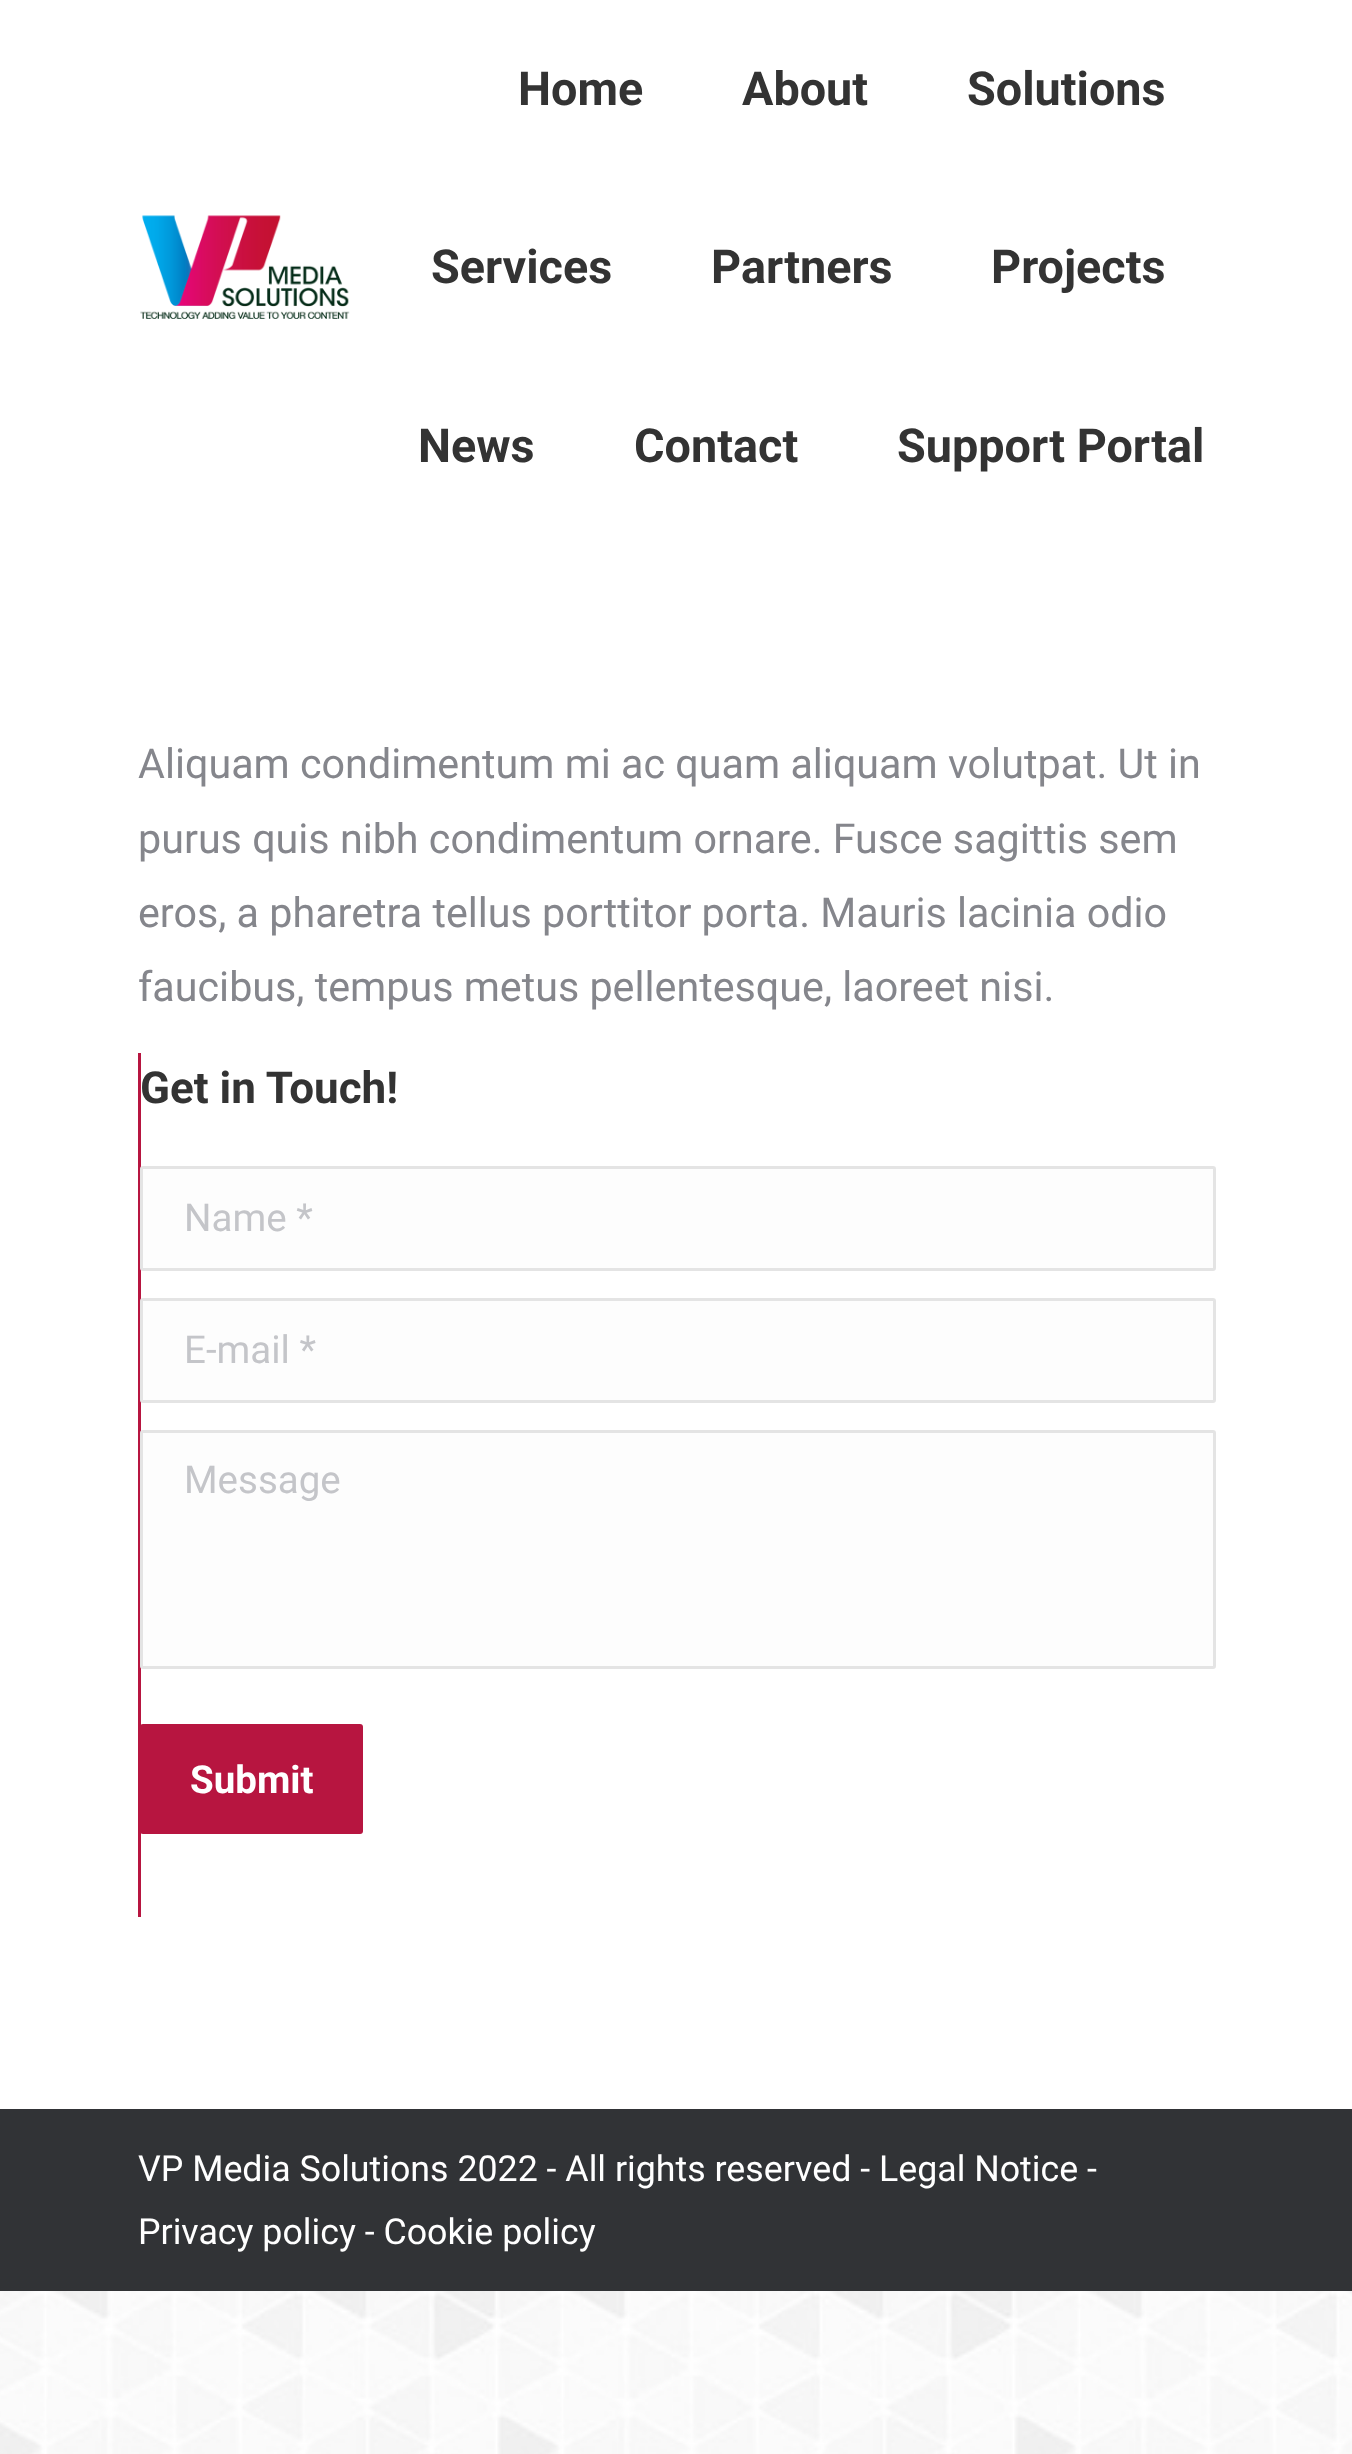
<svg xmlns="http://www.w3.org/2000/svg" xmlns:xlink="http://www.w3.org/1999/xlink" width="1352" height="2454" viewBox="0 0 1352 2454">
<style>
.cls-1{font:bold 46.75px Roboto;fill:#333333}
.cls-2{font:41.25px Roboto;fill:#85868c}
.cls-3{font:bold 44px Roboto;fill:#333333}
.cls-4{font:38.5px Roboto;fill:#c4c5c9}
.cls-5{font:bold 38.5px Roboto;fill:#ffffff}
.cls-6{font:35.75px Roboto;fill:#ffffff}
</style>
<rect width="100%" height="100%" fill="#ffffff"/>
<image xlink:href="image0.png" x="0" y="2291" width="1352" height="163"/>
<image xlink:href="image1.png" x="140" y="215" width="210" height="104"/>
<rect fill="#b71540" x="138" y="1053" width="3" height="864"/>
<rect fill="#fdfdfd" x="140" y="1166" width="1076" height="105" rx="3"/>
<rect fill="none" stroke="#333333" stroke-opacity="0.12" stroke-width="3" x="141.5" y="1167.5" width="1073" height="102" rx="1.5"/>
<rect fill="#fdfdfd" x="140" y="1298" width="1076" height="105" rx="3"/>
<rect fill="none" stroke="#333333" stroke-opacity="0.12" stroke-width="3" x="141.5" y="1299.5" width="1073" height="102" rx="1.5"/>
<rect fill="#fdfdfd" x="140" y="1430" width="1076" height="239" rx="3"/>
<rect fill="none" stroke="#333333" stroke-opacity="0.12" stroke-width="3" x="141.5" y="1431.5" width="1073" height="236" rx="1.5"/>
<rect fill="#b71540" x="140" y="1724" width="223" height="110" rx="3"/>
<rect fill="#313336" x="0" y="2109" width="1352" height="182"/>
<text class="cls-1" x="518" y="105">Home</text>
<text class="cls-1" x="742" y="105">About</text>
<text class="cls-1" x="967" y="105">Solutions</text>
<text class="cls-1" x="431" y="283">Services</text>
<text class="cls-1" x="711" y="283">Partners</text>
<text class="cls-1" x="991" y="283">Projects</text>
<text class="cls-1" x="418" y="462">News</text>
<text class="cls-1" x="634" y="462">Contact</text>
<text class="cls-1" x="897" y="462">Support Portal</text>
<text class="cls-2"><tspan x="138" y="778">Aliquam condimentum mi ac quam aliquam volutpat. Ut in</tspan><tspan x="138" y="853">purus quis nibh condimentum ornare. Fusce sagittis sem</tspan><tspan x="138" y="927">eros, a pharetra tellus porttitor porta. Mauris lacinia odio</tspan><tspan x="138" y="1001">faucibus, tempus metus pellentesque, laoreet nisi.</tspan></text>
<text class="cls-3" x="140" y="1103">Get in Touch!</text>
<text class="cls-4" x="184" y="1231">Name *</text>
<text class="cls-4" x="184" y="1363">E-mail *</text>
<text class="cls-4" x="184" y="1493">Message</text>
<text class="cls-5" x="190" y="1793">Submit</text>
<text class="cls-6"><tspan x="138" y="2181">VP Media Solutions 2022 - All rights reserved - Legal Notice -</tspan><tspan x="138" y="2244">Privacy policy - Cookie policy</tspan></text>
</svg>
